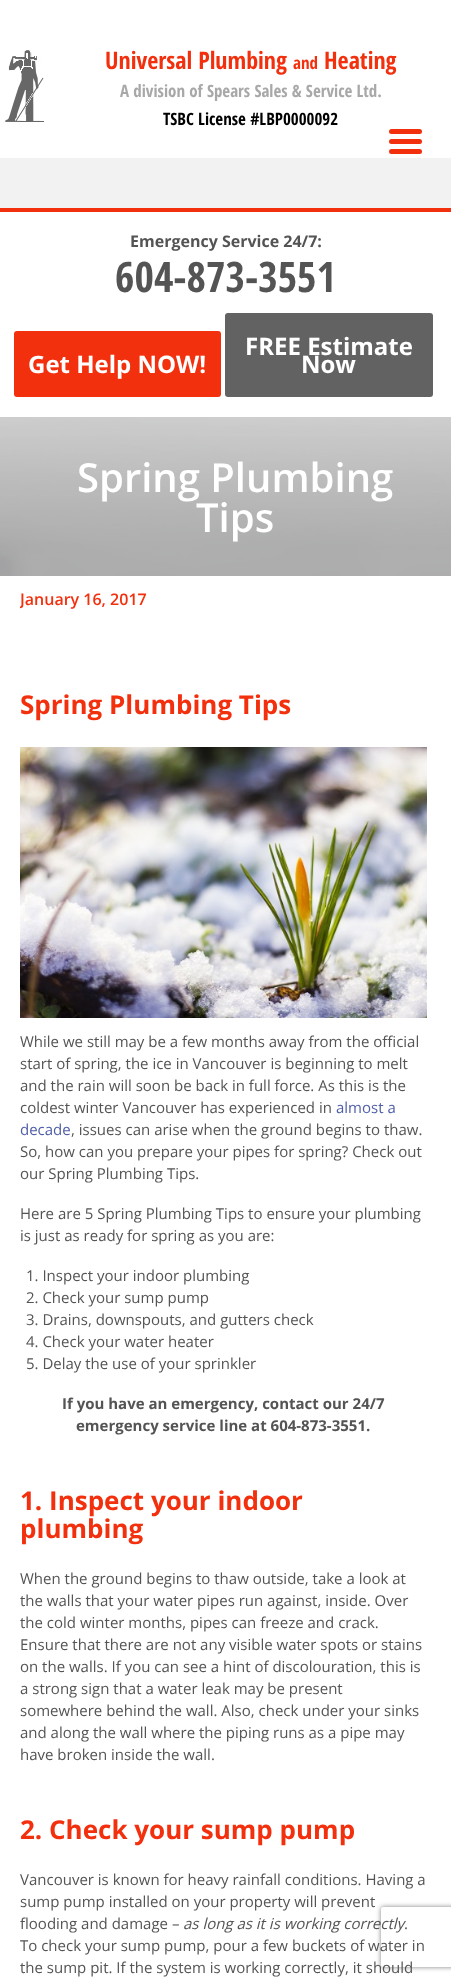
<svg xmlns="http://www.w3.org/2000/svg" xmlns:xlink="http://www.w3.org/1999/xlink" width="451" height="1981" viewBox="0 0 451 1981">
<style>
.cls-1{font:bold 24px Open Sans Condensed;fill:#f3300e}
.cls-2{font:bold 17px Open Sans Condensed;fill:#f3300e}
.cls-3{font:bold 17px Open Sans Condensed;fill:#a8a8a8}
.cls-4{font:bold 17px Open Sans Condensed;fill:#000000}
.cls-5{font:bold 16px Open Sans;fill:#545454}
.cls-6{font:bold 42px Open Sans Condensed;fill:#545454}
.cls-7{font:bold 24px Open Sans;fill:#ffffff}
.cls-8{font:600 40px Open Sans;fill:#ffffff}
.cls-9{font:600 16px Open Sans;fill:#f3300e}
.cls-10{font:bold 26px Open Sans;fill:#f3300e}
.cls-11{font:15px Open Sans;fill:#545454}
.cls-12{font:15px Open Sans;fill:#4f5ea7}
.cls-13{font:bold 15px Open Sans;fill:#545454}
.cls-14{font:italic 15px Open Sans;fill:#545454}
</style>
<defs>
<clipPath id="clip1"><path d="M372 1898H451V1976H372ZM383 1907H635C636 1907 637 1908 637 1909V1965C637 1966 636 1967 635 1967H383C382 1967 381 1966 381 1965V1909C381 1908 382 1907 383 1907Z" clip-rule="evenodd"/></clipPath>
<clipPath id="clip2"><rect x="20" y="577" width="411" height="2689"/></clipPath>
</defs>
<rect width="100%" height="100%" fill="#ffffff"/>
<image xlink:href="image0.png" x="5" y="50" width="39" height="72"/>
<rect fill="#f3300e" x="389" y="139" width="33" height="5" rx="2.5"/>
<rect fill="#f3300e" x="389" y="129" width="33" height="5" rx="2.5"/>
<rect fill="#f3300e" x="389" y="149" width="33" height="5" rx="2.5"/>
<rect fill="#f2f2f3" x="0" y="158" width="451" height="50"/>
<rect fill="#f3300e" x="0" y="208" width="451" height="4"/>
<rect fill="#f3300e" x="14" y="331" width="207" height="66" rx="3"/>
<rect fill="#626262" x="225" y="313" width="208" height="84" rx="3"/>
<image xlink:href="image1.png" x="0" y="417" width="451" height="159"/>
<image xlink:href="image2.png" x="20" y="747" width="407" height="271"/>
<g clip-path="url(#clip1)">
<rect fill="#808080" filter="blur(2.5px)" x="381" y="1907" width="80" height="60" rx="2"/>
</g>
<text class="cls-1" x="105" y="69">Universal Plumbing</text>
<text class="cls-2" x="293" y="69">and</text>
<text class="cls-1" x="324" y="69">Heating</text>
<text class="cls-3" x="120" y="97">A division of Spears Sales &amp; Service Ltd.</text>
<text class="cls-4" x="163" y="125">TSBC License #LBP0000092</text>
<text class="cls-5" x="130" y="247">Emergency Service 24/7:</text>
<text class="cls-6" x="115" y="292">604-873-3551</text>
<text class="cls-7" x="28" y="373">Get Help NOW!</text>
<text class="cls-7" x="245" y="355">FREE Estimate</text>
<text class="cls-7" x="301" y="373">Now</text>
<text class="cls-8" x="77" y="492">Spring Plumbing</text>
<text class="cls-8" x="196" y="532">Tips</text>
<g clip-path="url(#clip2)">
<text class="cls-9" x="20" y="605">January 16, 2017</text>
</g>
<text class="cls-10" x="20" y="714">Spring Plumbing Tips</text>
<text class="cls-11"><tspan x="20" y="1047">While we still may be a few months away from the official</tspan><tspan x="20" y="1069">start of spring, the ice in Vancouver is beginning to melt</tspan><tspan x="20" y="1091">and the rain will soon be back in full force. As this is the</tspan><tspan x="20" y="1113">coldest winter Vancouver has experienced in</tspan></text>
<text class="cls-12" x="336" y="1113">almost a</text>
<text class="cls-12" x="20" y="1135">decade</text>
<text class="cls-11" x="71" y="1135">, issues can arise when the ground begins to thaw.</text>
<text class="cls-11"><tspan x="20" y="1157">So, how can you prepare your pipes for spring? Check out</tspan><tspan x="20" y="1179">our Spring Plumbing Tips.</tspan></text>
<text class="cls-11"><tspan x="20" y="1219">Here are 5 Spring Plumbing Tips to ensure your plumbing</tspan><tspan x="20" y="1241">is just as ready for spring as you are:</tspan></text>
<text class="cls-11"><tspan x="26" y="1281">1. Inspect your indoor plumbing</tspan><tspan x="26" y="1303">2. Check your sump pump</tspan><tspan x="26" y="1325">3. Drains, downspouts, and gutters check</tspan><tspan x="26" y="1347">4. Check your water heater</tspan><tspan x="26" y="1369">5. Delay the use of your sprinkler</tspan></text>
<text class="cls-13" x="62" y="1409">If you have an emergency, contact our 24/7</text>
<text class="cls-13" x="76" y="1431">emergency service line at 604-873-3551.</text>
<text class="cls-10"><tspan x="20" y="1510">1. Inspect your indoor</tspan><tspan x="20" y="1538">plumbing</tspan></text>
<text class="cls-11"><tspan x="20" y="1584">When the ground begins to thaw outside, take a look at</tspan><tspan x="20" y="1606">the walls that your water pipes run against, inside. Over</tspan><tspan x="20" y="1628">the cold winter months, pipes can freeze and crack.</tspan><tspan x="20" y="1650">Ensure that there are not any visible water spots or stains</tspan><tspan x="20" y="1672">on the walls. If you can see a hint of discolouration, this is</tspan><tspan x="20" y="1694">a strong sign that a water leak may be present</tspan><tspan x="20" y="1716">somewhere behind the wall. Also, check under your sinks</tspan><tspan x="20" y="1738">and along the wall where the piping runs as a pipe may</tspan><tspan x="20" y="1760">have broken inside the wall.</tspan></text>
<text class="cls-10" x="20" y="1839">2. Check your sump pump</text>
<text class="cls-11"><tspan x="20" y="1885">Vancouver is known for heavy rainfall conditions. Having a</tspan><tspan x="20" y="1907">sump pump installed on your property will prevent</tspan><tspan x="20" y="1929">flooding and damage –</tspan></text>
<text class="cls-14" x="183" y="1929">as long as it is working correctly</text>
<text class="cls-11" x="404" y="1929">.</text>
<text class="cls-11"><tspan x="20" y="1951">To check your sump pump, pour a few buckets of water in</tspan><tspan x="20" y="1973">the sump pit. If the system is working correctly, it should</tspan></text>
</svg>
